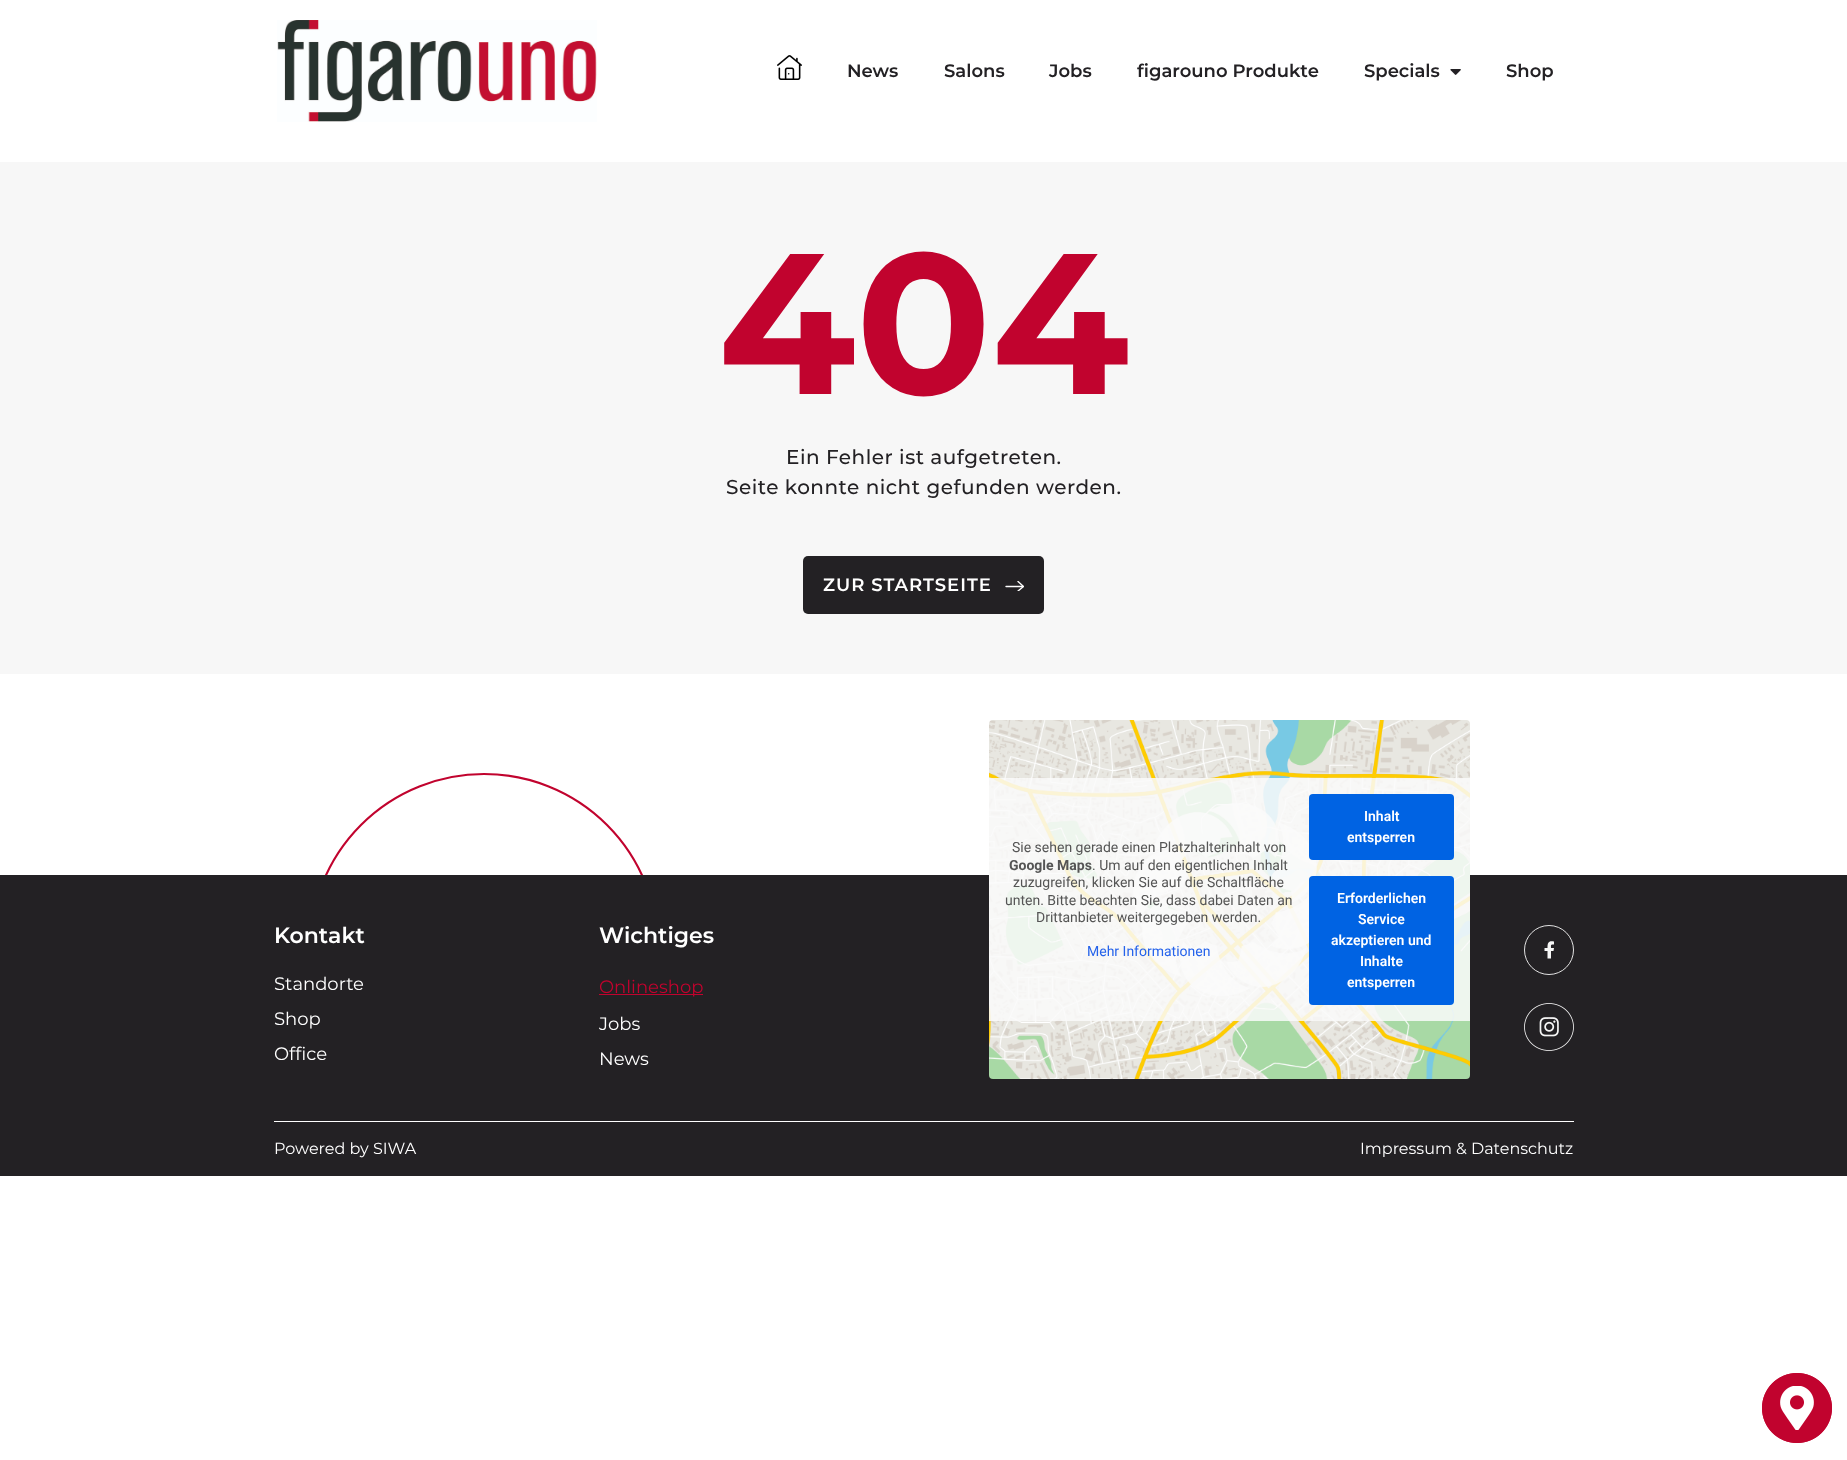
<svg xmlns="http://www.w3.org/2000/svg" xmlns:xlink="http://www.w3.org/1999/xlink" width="1847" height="1460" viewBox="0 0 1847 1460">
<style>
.cls-1{font:100 18px 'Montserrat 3';fill:#232124}
.cls-2{font:100 200px Montserrat;fill:#c1032e}
.cls-3{font:100 20px 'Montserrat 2';letter-spacing:0.5px;fill:#232124}
.cls-4{font:100 18px 'Montserrat 3';letter-spacing:1px;fill:#ffffff}
.cls-5{font:100 22px 'Montserrat 3';fill:#ffffff}
.cls-6{font:100 18px 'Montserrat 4';fill:#ffffff}
.cls-7{font:100 18px 'Montserrat 4';fill:#c1032e}
.cls-8{font:14px Roboto;fill:#555555}
.cls-9{font:bold 14px Roboto;fill:#555555}
.cls-10{font:14px Roboto;fill:#2563eb}
.cls-11{font:600 14px Roboto;fill:#ffffff}
.cls-12{font:100 16px 'Montserrat 4';fill:#ffffff}
</style>
<defs>
<clipPath id="clip1"><rect x="1006" y="581" width="18" height="10"/></clipPath>
</defs>
<rect width="100%" height="100%" fill="#ffffff"/>
<image xlink:href="image0.png" x="277" y="20" width="320" height="102"/>
<image xlink:href="image1.png" x="777" y="55" width="25" height="25"/>
<image xlink:href="image2.png" x="1450" y="69" width="11" height="6"/>
<rect fill="#f7f7f7" x="0" y="162" width="1847" height="512"/>
<rect fill="#232124" x="803" y="556" width="241" height="58" rx="5"/>
<path fill="none" stroke="#ffffff" stroke-width="1.4" stroke-linecap="round" d="M1006 586.5H1023"/>
<g clip-path="url(#clip1)">
<path fill="none" stroke="#ffffff" stroke-width="1.4" stroke-linecap="round" stroke-linejoin="round" d="M1018 581.5L1023.5 586.5L1018 591"/>
</g>
<circle fill="none" stroke="#c1032e" stroke-width="2.1" cx="484" cy="948" r="174"/>
<rect fill="#232124" x="0" y="875" width="1847" height="301"/>
<rect fill="#c1032e" x="599" y="994" width="104" height="1"/>
<image xlink:href="image3.png" x="989" y="720" width="481" height="359"/>
<rect fill="#fafafa" fill-opacity="0.85" x="989" y="778" width="481" height="243"/>
<rect fill="#0063e3" x="1309" y="794" width="145" height="66" rx="4"/>
<rect fill="#0063e3" x="1309" y="876" width="145" height="129" rx="4"/>
<circle fill="none" stroke="#f7f7f7" stroke-width="0.9" cx="1549" cy="950" r="24.5"/>
<path fill="#f7f7f7" d="M1553.5 951L1554 948H1551C1551 944.5 1550.5 944.5 1554 944.5V941.5C1548.5 940.5 1547.5 942.5 1547.5 948H1544.5V951H1547.5V958.5H1551V951Z"/>
<image xlink:href="image4.png" x="1524" y="1003" width="50" height="48"/>
<rect fill="#ffffff" x="274" y="1121" width="1300" height="1"/>
<image xlink:href="image5.png" x="1762" y="1373" width="70" height="70"/>
<text class="cls-1" x="847" y="77">News</text>
<text class="cls-1" x="944" y="77">Salons</text>
<text class="cls-1" x="1049" y="77">Jobs</text>
<text class="cls-1" x="1137" y="77">figarouno Produkte</text>
<text class="cls-1" x="1364" y="77">Specials</text>
<text class="cls-1" x="1506" y="77">Shop</text>
<text class="cls-2" x="718" y="394">404</text>
<text class="cls-3" x="786" y="464">Ein Fehler ist aufgetreten.</text>
<text class="cls-3" x="726" y="494">Seite konnte nicht gefunden werden.</text>
<text class="cls-4" x="823" y="591">ZUR STARTSEITE</text>
<text class="cls-5" x="274" y="943">Kontakt</text>
<text class="cls-6"><tspan x="274" y="990">Standorte</tspan><tspan x="274" y="1025">Shop</tspan><tspan x="274" y="1060">Office</tspan></text>
<text class="cls-5" x="599" y="943">Wichtiges</text>
<text class="cls-7" x="599" y="993">Onlineshop</text>
<text class="cls-6"><tspan x="599" y="1030">Jobs</tspan><tspan x="599" y="1065">News</tspan></text>
<text class="cls-8" x="1012" y="852">Sie sehen gerade einen Platzhalterinhalt von</text>
<text class="cls-9" x="1009" y="870">Google Maps</text>
<text class="cls-8" x="1092" y="870">. Um auf den eigentlichen Inhalt</text>
<text class="cls-8" x="1013" y="887">zuzugreifen, klicken Sie auf die Schaltfläche</text>
<text class="cls-8" x="1005" y="905">unten. Bitte beachten Sie, dass dabei Daten an</text>
<text class="cls-8" x="1036" y="922">Drittanbieter weitergegeben werden.</text>
<text class="cls-10" x="1087" y="956">Mehr Informationen</text>
<text class="cls-11" x="1364" y="821">Inhalt</text>
<text class="cls-11" x="1347" y="842">entsperren</text>
<text class="cls-11" x="1337" y="903">Erforderlichen</text>
<text class="cls-11" x="1358" y="924">Service</text>
<text class="cls-11" x="1331" y="945">akzeptieren und</text>
<text class="cls-11" x="1360" y="966">Inhalte</text>
<text class="cls-11" x="1347" y="987">entsperren</text>
<text class="cls-12" x="274" y="1154">Powered by SIWA</text>
<text class="cls-12" x="1360" y="1154">Impressum &amp; Datenschutz</text>
</svg>
